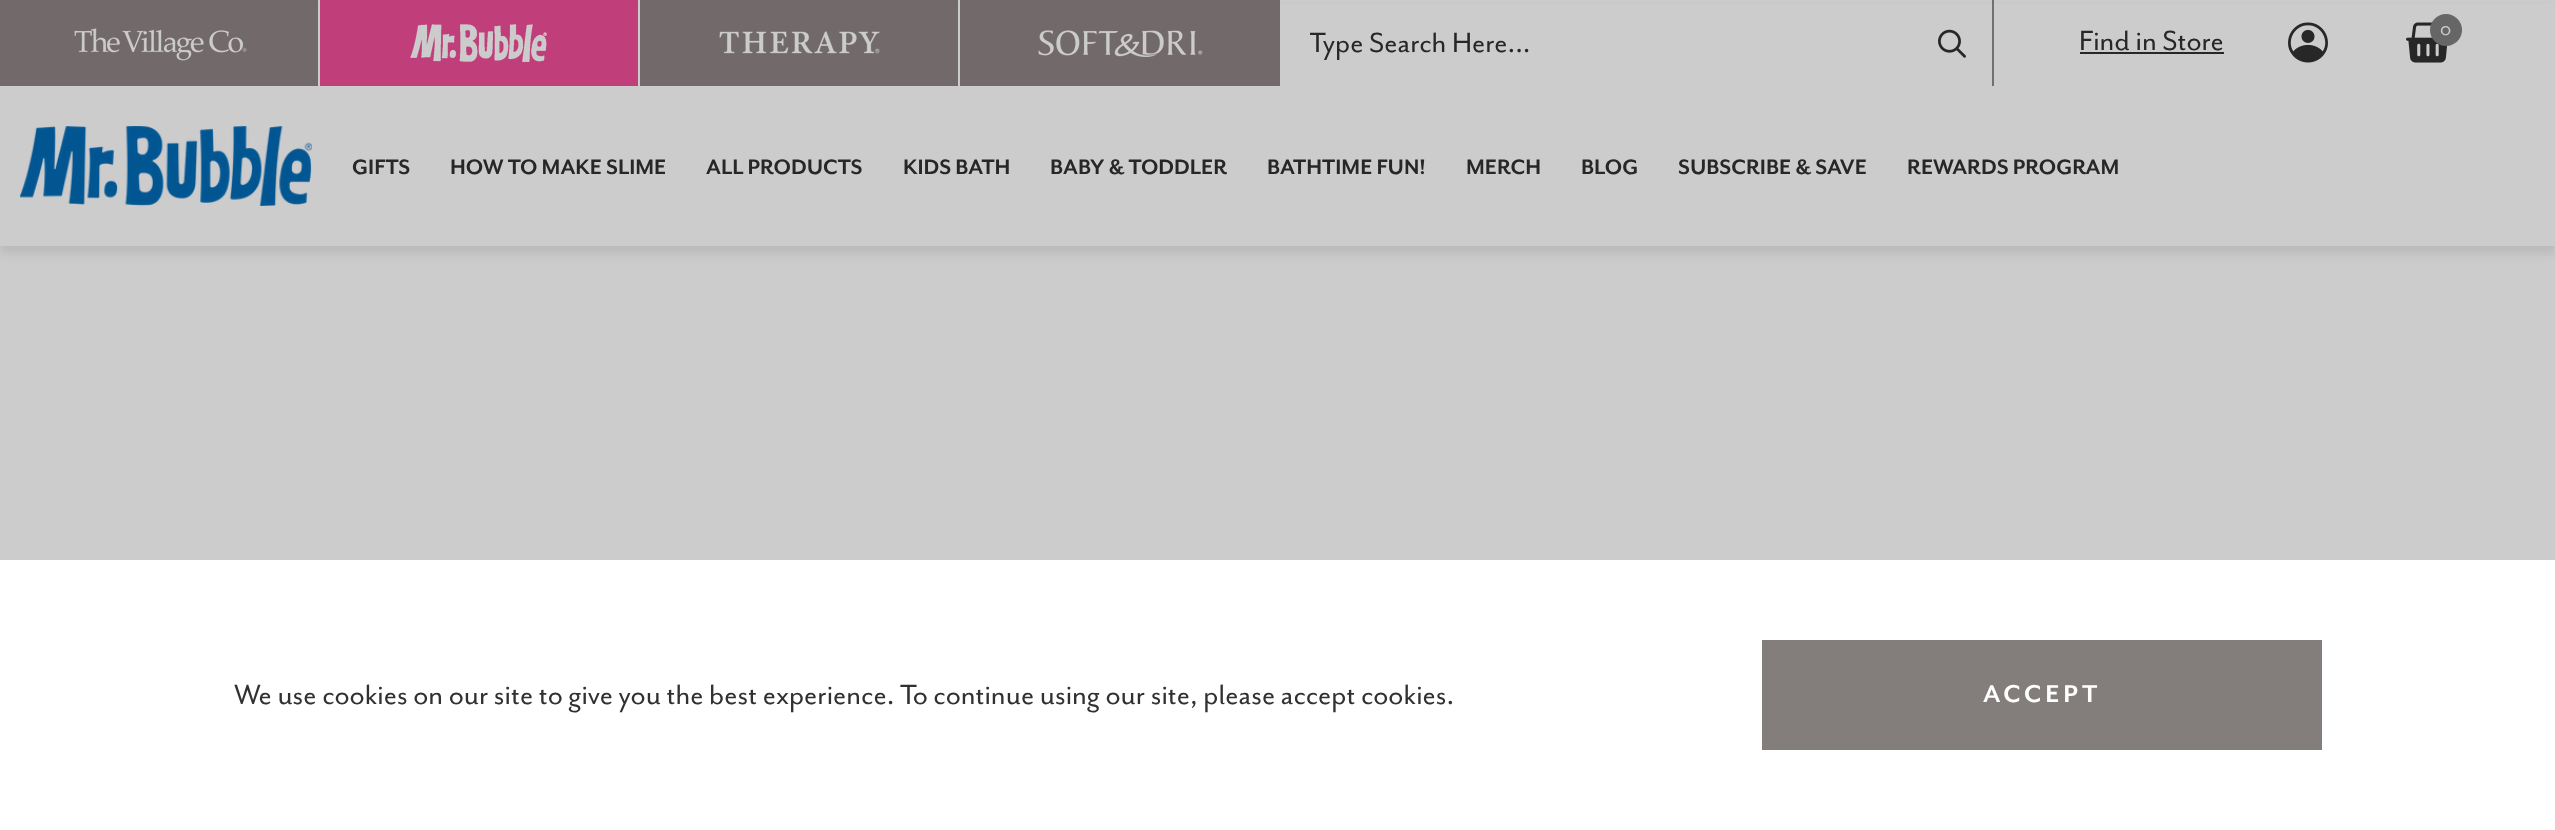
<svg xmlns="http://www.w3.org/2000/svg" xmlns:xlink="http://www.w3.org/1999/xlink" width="2555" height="830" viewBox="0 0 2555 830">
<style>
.cls-1{font:32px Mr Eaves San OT;fill:#282727}
.cls-2{font:20px Mr Eaves San OT;fill:#cccccc}
.cls-3{font:bold 24px Mr Eaves San OT;fill:#282727}
.cls-4{font:32px Mr Eaves San OT;fill:#323131}
.cls-5{font:bold 28px Mr Eaves San OT;letter-spacing:4px;fill:#ffffff}
</style>
<defs>
<clipPath id="clip1"><rect x="1310" y="26" width="556" height="34"/></clipPath>
</defs>
<rect width="100%" height="100%" fill="#cccccc"/>
<rect fill="#282727" fill-opacity="0.1" filter="blur(4px)" x="0" y="8" width="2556" height="246"/>
<rect fill="#cccccc" x="0" y="4" width="2555" height="242"/>
<rect fill="#72696a" x="0" y="0" width="318" height="86"/>
<image xlink:href="image0.png" x="74" y="28" width="173" height="33"/>
<rect fill="#c03e7a" x="320" y="0" width="318" height="86"/>
<image xlink:href="image1.png" x="410" y="24" width="137" height="39"/>
<rect fill="#72696a" x="640" y="0" width="318" height="86"/>
<image xlink:href="image2.png" x="719" y="31" width="161" height="23"/>
<rect fill="#72696a" x="960" y="0" width="320" height="86"/>
<image xlink:href="image3.png" x="1038" y="30" width="165" height="27"/>
<rect fill="#717171" x="1992" y="0" width="2" height="86"/>
<image xlink:href="image4.png" x="1938" y="29" width="28" height="29"/>
<rect fill="#282727" x="2080" y="52" width="144" height="2"/>
<image xlink:href="image5.png" x="2288" y="22" width="40" height="41"/>
<image xlink:href="image6.png" x="2406" y="22" width="42" height="41"/>
<circle fill="#666666" cx="2446" cy="30" r="16"/>
<image xlink:href="image7.png" x="20" y="126" width="292" height="80"/>
<rect fill="#ffffff" x="0" y="560" width="2555" height="270"/>
<rect fill="#837d7c" x="1762" y="640" width="560" height="110"/>
<g clip-path="url(#clip1)">
<text class="cls-1" x="1309" y="52">Type Search Here...</text>
</g>
<text class="cls-1" x="2079" y="50">Find in Store</text>
<text class="cls-2" x="2440" y="35">0</text>
<text class="cls-3" x="352" y="174">GIFTS</text>
<text class="cls-3" x="450" y="174">HOW TO MAKE SLIME</text>
<text class="cls-3" x="706" y="174">ALL PRODUCTS</text>
<text class="cls-3" x="903" y="174">KIDS BATH</text>
<text class="cls-3" x="1050" y="174">BABY &amp; TODDLER</text>
<text class="cls-3" x="1267" y="174">BATHTIME FUN!</text>
<text class="cls-3" x="1466" y="174">MERCH</text>
<text class="cls-3" x="1581" y="174">BLOG</text>
<text class="cls-3" x="1678" y="174">SUBSCRIBE &amp; SAVE</text>
<text class="cls-3" x="1907" y="174">REWARDS PROGRAM</text>
<text class="cls-4" x="234" y="704">We use cookies on our site to give you the best experience. To continue using our site, please accept cookies.</text>
<text class="cls-5" x="1983" y="702">ACCEPT</text>
</svg>
